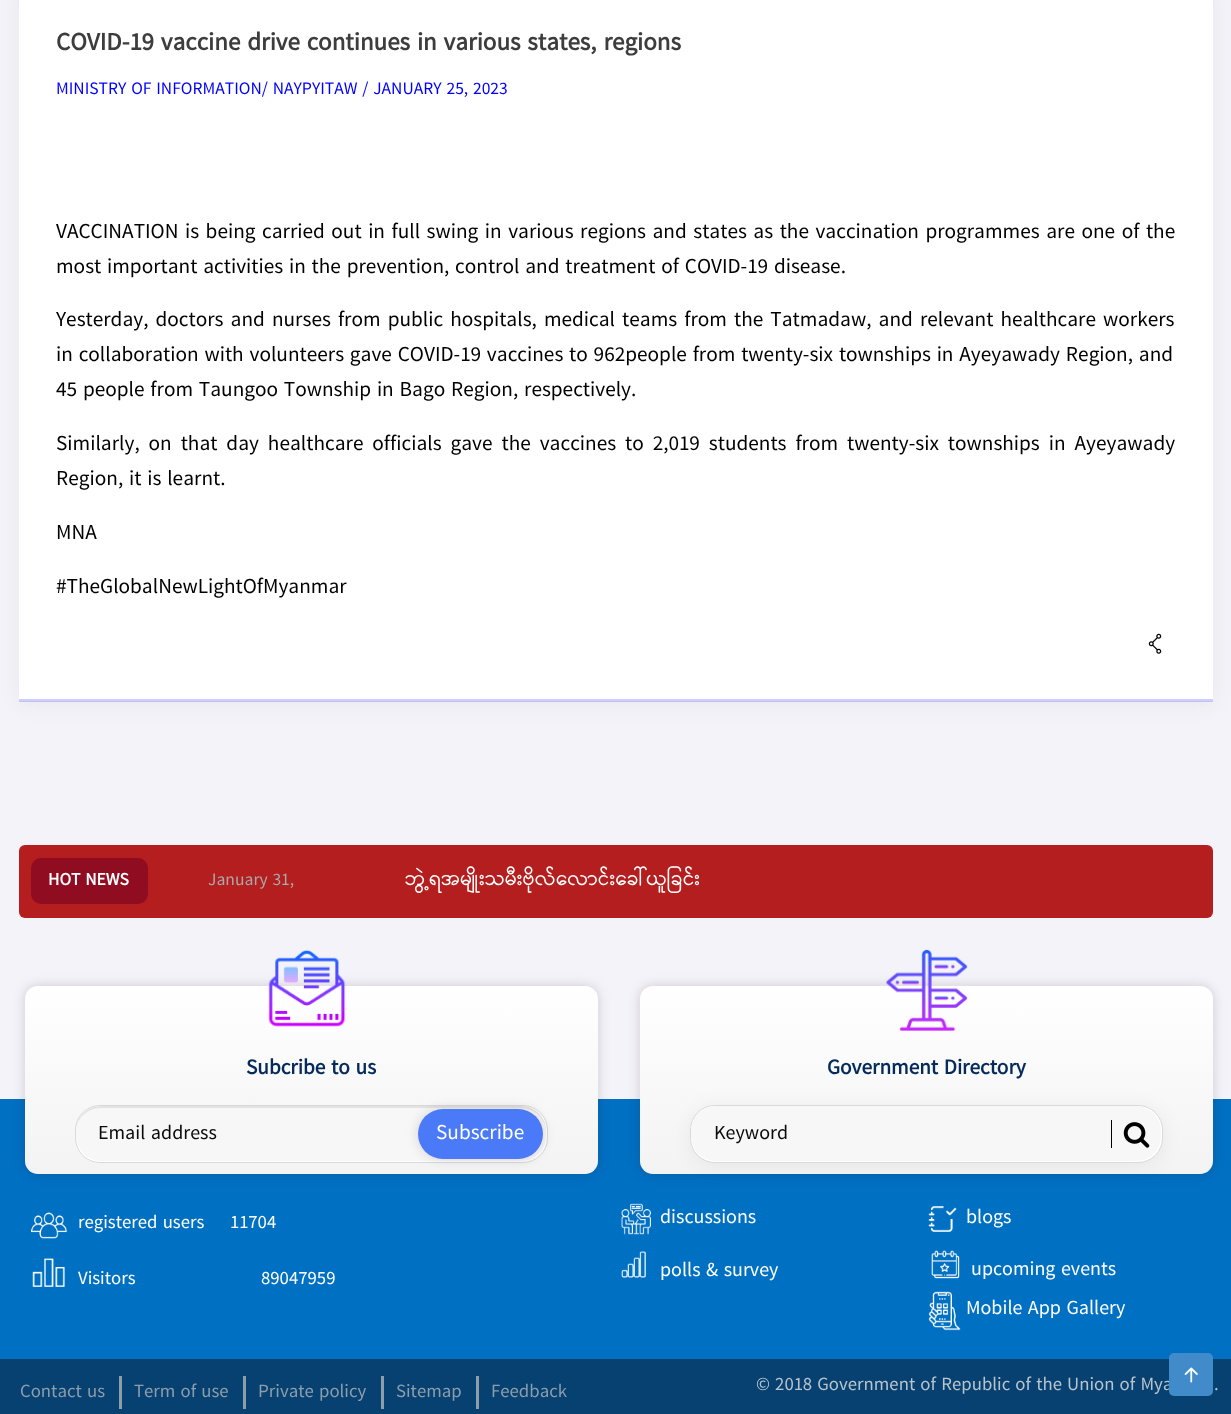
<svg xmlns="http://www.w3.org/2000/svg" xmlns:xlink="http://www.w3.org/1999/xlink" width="1231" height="1414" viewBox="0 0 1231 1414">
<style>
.cls-1{font:bold 25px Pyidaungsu;fill:#3d3d3d}
.cls-2{font:17.5px Pyidaungsu;fill:#0000ff}
.cls-3{font:21.25px Pyidaungsu;fill:#000000}
.cls-4{font:bold 17.5px Pyidaungsu;fill:#ffffff}
.cls-5{font:17.5px Pyidaungsu;fill:#a9a9a9}
.cls-6{font:20px Pyidaungsu;fill:#ffffff}
.cls-7{font:bold 21.25px Pyidaungsu;fill:#062b5b}
.cls-8{font:20px Pyidaungsu;fill:#0a0a0a}
.cls-9{font:21.25px Pyidaungsu;fill:#ffffff}
.cls-10{font:18.75px Pyidaungsu;fill:#ffffff}
.cls-11{font:18.75px Pyidaungsu;fill:#8d9eab}
.cls-12{font:18.75px Pyidaungsu;fill:#b9c4cb}
</style>
<defs>
<linearGradient id="g1" gradientUnits="userSpaceOnUse" x1="311" y1="986" x2="311" y2="1174"><stop offset="0" stop-color="#ffffff"/><stop offset="1" stop-color="#f3f3f3"/></linearGradient>
<linearGradient id="g2" gradientUnits="userSpaceOnUse" x1="926" y1="986" x2="926" y2="1174"><stop offset="0" stop-color="#ffffff"/><stop offset="1" stop-color="#f3f3f3"/></linearGradient>
</defs>
<rect width="100%" height="100%" fill="#f3f3f9"/>
<rect fill="#cdcdcd" fill-opacity="0.33" filter="blur(9.5px)" x="19" y="-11" width="1194" height="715"/>
<rect fill="#ffffff" x="19" y="0" width="1194" height="701"/>
<rect fill="#0000ff" fill-opacity="0.19" x="19" y="699" width="1194" height="3"/>
<image xlink:href="image0.png" x="1148" y="633" width="14" height="21"/>
<rect fill="#b41e1e" x="19" y="845" width="1194" height="73" rx="6"/>
<rect fill="#900d21" x="31" y="858" width="117" height="46" rx="10"/>
<rect fill="#064171" x="0" y="1359" width="1231" height="55"/>
<rect fill="#0070c3" x="0" y="1099" width="1231" height="260"/>
<rect fill="#260202" fill-opacity="0.16" filter="blur(6px)" x="25" y="986" width="573" height="188" rx="13"/>
<rect fill="url(#g1)" x="25" y="986" width="573" height="188" rx="13"/>
<image xlink:href="image2.png" x="268" y="950" width="78" height="77"/>
<rect fill="#ffffff" stroke="#d9d9d9" x="75.5" y="1105.5" width="472" height="57" rx="24.5"/>
<rect fill="#f7f7f7" x="76" y="1106" width="470" height="55" rx="25"/>
<path fill="#000000" fill-opacity="0.08" d="M101 1108H521C535 1108 546 1119 546 1132V1131C546 1117 535 1106 521 1106H101C87 1106 76 1117 76 1131V1132C76 1119 87 1108 101 1108Z"/>
<rect fill="#260202" fill-opacity="0.16" filter="blur(6px)" x="418" y="1109" width="125" height="50" rx="25"/>
<rect fill="#4a7af8" x="418" y="1109" width="125" height="50" rx="25"/>
<rect fill="#260202" fill-opacity="0.16" filter="blur(6px)" x="640" y="986" width="573" height="188" rx="13"/>
<rect fill="url(#g2)" x="640" y="986" width="573" height="188" rx="13"/>
<image xlink:href="image3.png" x="886" y="949" width="82" height="82"/>
<rect fill="#000000" fill-opacity="0.06" filter="blur(9.5px)" x="690" y="1108" width="473" height="57" rx="25"/>
<rect fill="#ffffff" stroke="#d9d9d9" x="690.5" y="1105.5" width="472" height="57" rx="24.5"/>
<rect fill="#f7f7f7" x="691" y="1106" width="470" height="55" rx="25"/>
<rect fill="#000000" x="1111" y="1120" width="1" height="28"/>
<image xlink:href="image4.png" x="1123" y="1122" width="27" height="26"/>
<image xlink:href="image5.png" x="31" y="1212" width="37" height="27"/>
<image xlink:href="image6.png" x="32" y="1258" width="33" height="29"/>
<image xlink:href="image7.png" x="621" y="1203" width="30" height="32"/>
<image xlink:href="image8.png" x="621" y="1251" width="25" height="27"/>
<image xlink:href="image9.png" x="928" y="1206" width="29" height="26"/>
<image xlink:href="image10.png" x="931" y="1250" width="29" height="29"/>
<image xlink:href="image11.png" x="928" y="1291" width="33" height="40"/>
<rect fill="#8d9eab" x="119" y="1376" width="3" height="33"/>
<rect fill="#8d9eab" x="243" y="1376" width="3" height="33"/>
<rect fill="#8d9eab" x="381" y="1376" width="3" height="33"/>
<rect fill="#8d9eab" x="476" y="1376" width="3" height="33"/>
<text class="cls-1" x="56" y="50">COVID-19 vaccine drive continues in various states, regions</text>
<text class="cls-2" x="56" y="94">MINISTRY OF INFORMATION/ NAYPYITAW / JANUARY 25, 2023</text>
<text class="cls-3"><tspan x="56" y="238" word-spacing="0.7">VACCINATION is being carried out in full swing in various regions and states as the vaccination programmes are one of the</tspan><tspan x="56" y="273">most important activities in the prevention, control and treatment of COVID-19 disease.</tspan></text>
<text class="cls-3"><tspan x="56" y="326" word-spacing="1.25">Yesterday, doctors and nurses from public hospitals, medical teams from the Tatmadaw, and relevant healthcare workers</tspan><tspan x="56" y="361">in collaboration with volunteers gave COVID-19 vaccines to 962people from twenty-six townships in Ayeyawady Region, and</tspan><tspan x="56" y="396">45 people from Taungoo Township in Bago Region, respectively.</tspan></text>
<text class="cls-3"><tspan x="56" y="450" word-spacing="3.1">Similarly, on that day healthcare officials gave the vaccines to 2,019 students from twenty-six townships in Ayeyawady</tspan><tspan x="56" y="485">Region, it is learnt.</tspan></text>
<text class="cls-3" x="56" y="539">MNA</text>
<text class="cls-3" x="56" y="593">#TheGlobalNewLightOfMyanmar</text>
<text class="cls-4" x="48" y="885">HOT NEWS</text>
<text class="cls-5" x="208" y="885">January 31,</text>
<text class="cls-6" x="405" y="885">ဘွဲ့ရအမျိုးသမီးဗိုလ်လောင်းခေါ်ယူခြင်း</text>
<text class="cls-7" x="246" y="1074">Subcribe to us</text>
<text class="cls-8" x="98" y="1139">Email address</text>
<text class="cls-9" x="436" y="1139">Subscribe</text>
<text class="cls-7" x="827" y="1074">Government Directory</text>
<text class="cls-8" x="714" y="1139">Keyword</text>
<text class="cls-10" x="78" y="1228">registered users</text>
<text class="cls-10" x="230" y="1228">11704</text>
<text class="cls-10" x="78" y="1284">Visitors</text>
<text class="cls-10" x="261" y="1284">89047959</text>
<text class="cls-6" x="660" y="1223">discussions</text>
<text class="cls-6" x="660" y="1276">polls &amp; survey</text>
<text class="cls-6" x="966" y="1223">blogs</text>
<text class="cls-6" x="971" y="1275">upcoming events</text>
<text class="cls-6" x="966" y="1314">Mobile App Gallery</text>
<text class="cls-11" x="20" y="1397">Contact us</text>
<text class="cls-11" x="134" y="1397">Term of use</text>
<text class="cls-11" x="258" y="1397">Private policy</text>
<text class="cls-11" x="396" y="1397">Sitemap</text>
<text class="cls-11" x="491" y="1397">Feedback</text>
<text class="cls-12" x="756" y="1390">© 2018 Government of Republic of the Union of Mya</text>
<rect fill="#428bca" x="1169" y="1353" width="44" height="43" rx="5"/>
<image xlink:href="image1.png" x="1184" y="1367" width="14" height="16"/>
<text class="cls-12" x="1214" y="1390">.</text>
</svg>
